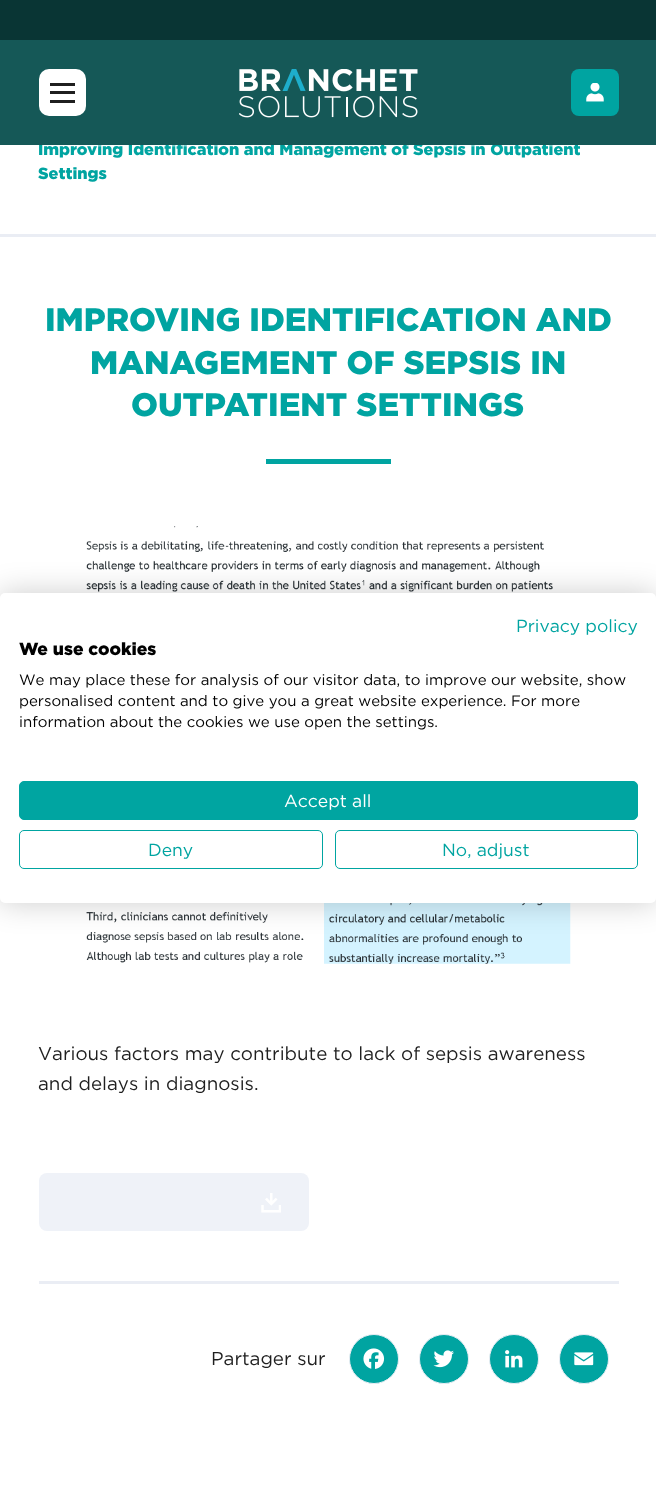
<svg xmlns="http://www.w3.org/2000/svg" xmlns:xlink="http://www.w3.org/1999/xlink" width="656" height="1495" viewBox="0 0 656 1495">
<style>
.cls-1{font:900 16.25px Gotham;fill:#00a4a1}
.cls-2{font:900 32.5px Gotham;fill:#00a4a1}
.cls-3{font:18.75px Gotham;fill:#1f1f1f}
.cls-4{font:17.5px Gotham;fill:#00a4a1}
.cls-5{font:900 17.5px Gotham;fill:#000000}
.cls-6{font:15px Gotham;fill:#000000}
.cls-7{font:17.5px Gotham;fill:#ffffff}
</style>
<rect width="100%" height="100%" fill="#ffffff"/>
<rect fill="#093534" x="0" y="0" width="656" height="40"/>
<rect fill="#eaedf4" x="0" y="234" width="656" height="3"/>
<rect fill="#00a4a1" x="266" y="459" width="125" height="5"/>
<image xlink:href="image2.png" x="86" y="526" width="485" height="438"/>
<rect fill="#eff2f8" x="39" y="1173" width="270" height="58" rx="8"/>
<image xlink:href="image3.png" x="261" y="1193" width="20" height="20"/>
<rect fill="#eaedf4" x="39" y="1281" width="580" height="3"/>
<circle fill="#00a4a1" stroke="#eaedf4" cx="374" cy="1359" r="24.5"/>
<image xlink:href="image4.png" x="363" y="1348" width="22" height="21"/>
<circle fill="#00a4a1" stroke="#eaedf4" cx="444" cy="1359" r="24.5"/>
<image xlink:href="image5.png" x="433" y="1350" width="21" height="18"/>
<circle fill="#00a4a1" stroke="#eaedf4" cx="514" cy="1359" r="24.5"/>
<image xlink:href="image6.png" x="505" y="1350" width="18" height="18"/>
<circle fill="#00a4a1" stroke="#eaedf4" cx="584" cy="1359" r="24.5"/>
<image xlink:href="image7.png" x="574" y="1352" width="20" height="14"/>
<rect fill="#000000" fill-opacity="0.2" filter="blur(15px)" x="0" y="593" width="656" height="310" rx="5"/>
<rect fill="#ffffff" x="0" y="593" width="656" height="310" rx="5"/>
<rect fill="#00a5a1" stroke="#00a5a1" x="19.5" y="781.5" width="618" height="38" rx="4.5"/>
<rect fill="none" stroke="#00a5a1" x="19.5" y="830.5" width="303" height="38" rx="4.5"/>
<rect fill="none" stroke="#00a5a1" x="335.5" y="830.5" width="302" height="38" rx="4.5"/>
<text class="cls-1" x="38" y="155">Improving Identification and Management of Sepsis in Outpatient</text>
<rect fill="#155857" x="0" y="40" width="656" height="105"/>
<rect fill="#ffffff" x="39" y="69" width="47" height="47" rx="10"/>
<rect fill="#1f1f1f" x="50" y="100" width="25" height="3"/>
<rect fill="#1f1f1f" x="50" y="83" width="25" height="3"/>
<rect fill="#1f1f1f" x="50" y="91" width="25" height="3"/>
<rect fill="#00a4a1" x="571" y="69" width="48" height="47" rx="8"/>
<image xlink:href="image1.png" x="586" y="83" width="18" height="19"/>
<image xlink:href="image0.png" x="239" y="69" width="179" height="49"/>
<text class="cls-1" x="38" y="179">Settings</text>
<text class="cls-2" x="45" y="331">IMPROVING IDENTIFICATION AND</text>
<text class="cls-2" x="90" y="374">MANAGEMENT OF SEPSIS IN</text>
<text class="cls-2" x="131" y="416">OUTPATIENT SETTINGS</text>
<text class="cls-3"><tspan x="38" y="1060">Various factors may contribute to lack of sepsis awareness</tspan><tspan x="38" y="1090">and delays in diagnosis.</tspan></text>
<text class="cls-3" x="211" y="1365">Partager sur</text>
<text class="cls-4" x="516" y="632">Privacy policy</text>
<text class="cls-5" x="19" y="655">We use cookies</text>
<text class="cls-6"><tspan x="19" y="685">We may place these for analysis of our visitor data, to improve our website, show</tspan><tspan x="19" y="706">personalised content and to give you a great website experience. For more</tspan><tspan x="19" y="727">information about the cookies we use open the settings.</tspan></text>
<text class="cls-7" x="284" y="807">Accept all</text>
<text class="cls-4" x="148" y="856">Deny</text>
<text class="cls-4" x="442" y="856">No, adjust</text>
</svg>
